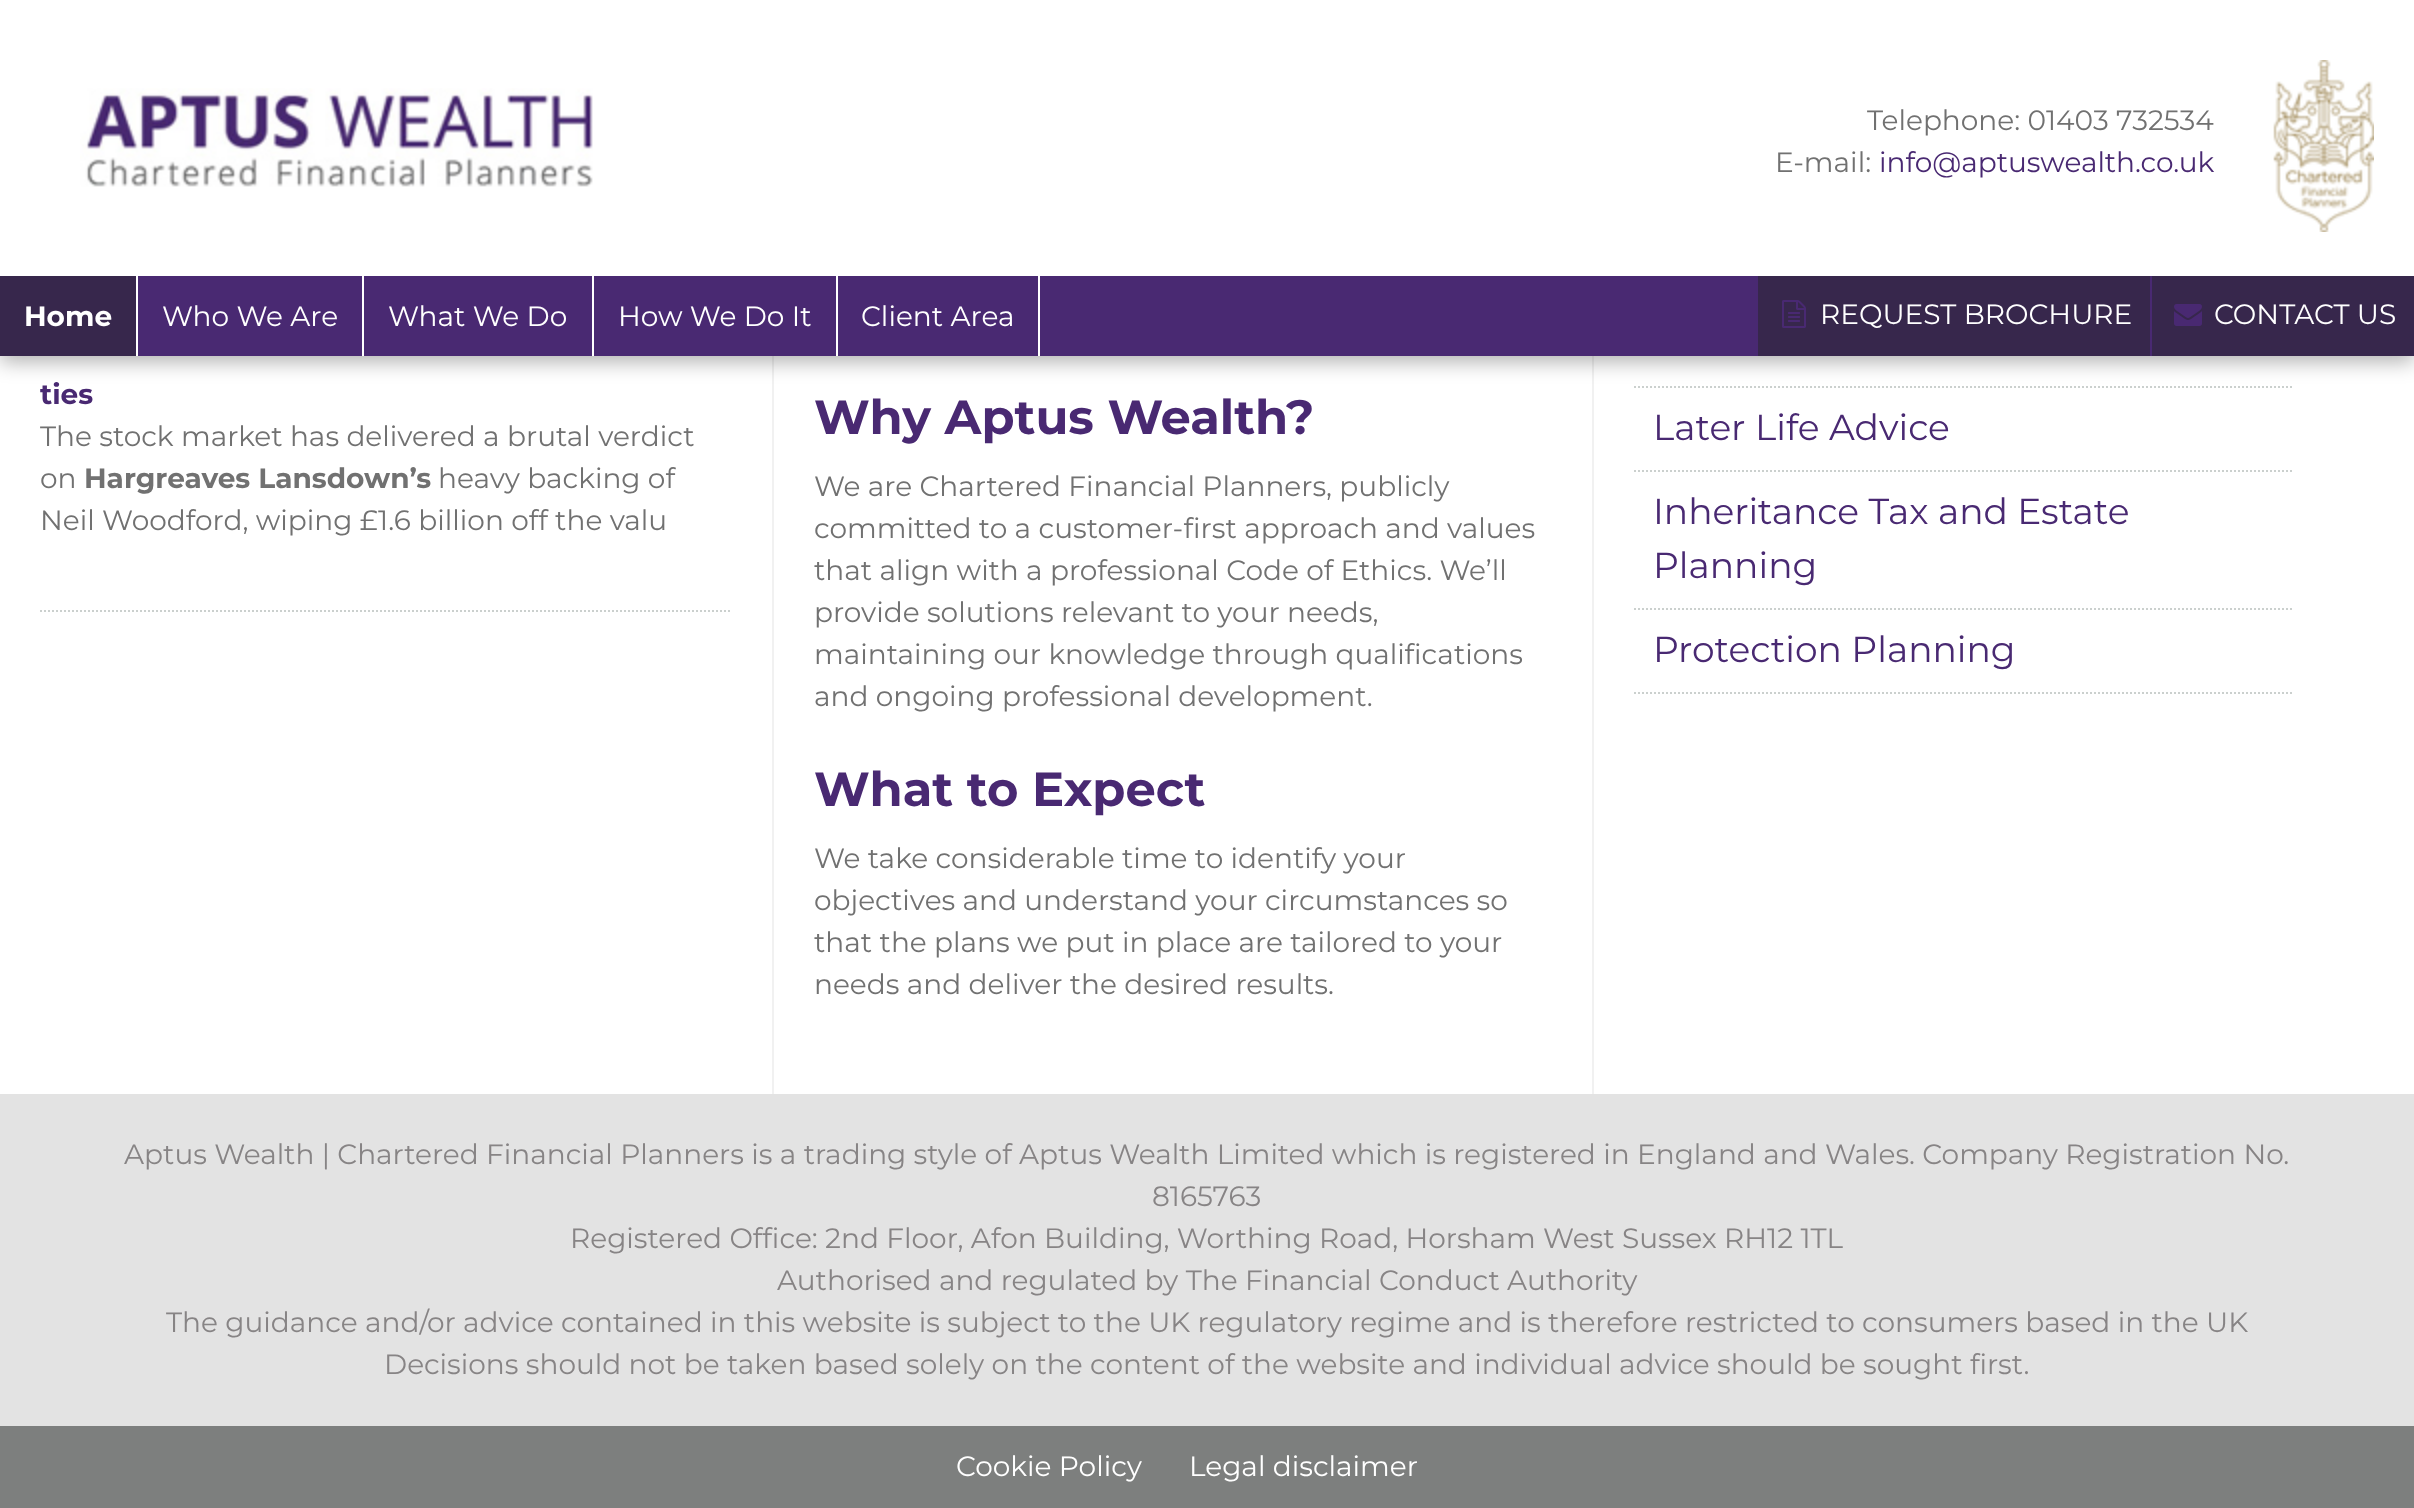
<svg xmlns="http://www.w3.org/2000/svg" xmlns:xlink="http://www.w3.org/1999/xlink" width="2414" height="1508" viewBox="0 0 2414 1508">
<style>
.cls-1{font:28px Montserrat;fill:#717171}
.cls-2{font:28px Montserrat;fill:#492972}
.cls-3{font:bold 28px Montserrat;fill:#ffffff}
.cls-4{font:28px Montserrat;fill:#ffffff}
.cls-5{font:bold 28px Montserrat;fill:#492972}
.cls-6{font:bold 28px Montserrat;fill:#717171}
.cls-7{font:bold 48px Montserrat;fill:#492972}
.cls-8{font:36px Montserrat;fill:#492972}
.cls-9{font:28px Montserrat;fill:#878485}
</style>
<rect width="100%" height="100%" fill="#ffffff"/>
<rect fill="#f1f1f1" x="1592" y="356" width="2" height="738"/>
<rect fill="#f1f1f1" x="772" y="356" width="2" height="738"/>
<path fill="none" stroke="#cbd0ce" stroke-width="2" stroke-dasharray="2 2" d="M1634 387H2294"/>
<rect fill="#000000" fill-opacity="0.3" filter="blur(10px)" x="0" y="6" width="2414" height="356"/>
<rect fill="#ffffff" x="0" y="0" width="2414" height="276"/>
<image xlink:href="image0.png" x="80" y="88" width="513" height="99"/>
<image xlink:href="image1.png" x="2273" y="60" width="101" height="172"/>
<rect fill="#492972" x="138" y="276" width="1620" height="80"/>
<rect fill="#37274c" x="0" y="276" width="136" height="80"/>
<rect fill="#ffffff" x="136" y="276" width="2" height="80"/>
<rect fill="#ffffff" x="362" y="276" width="2" height="80"/>
<rect fill="#ffffff" x="592" y="276" width="2" height="80"/>
<rect fill="#ffffff" x="836" y="276" width="2" height="80"/>
<rect fill="#ffffff" x="1038" y="276" width="2" height="80"/>
<rect fill="#37274c" x="1758" y="276" width="392" height="80"/>
<image xlink:href="image2.png" x="1782" y="300" width="24" height="28"/>
<rect fill="#37274c" x="2152" y="276" width="262" height="80"/>
<rect fill="#492972" x="2150" y="276" width="2" height="80"/>
<image xlink:href="image3.png" x="2174" y="304" width="28" height="22"/>
<path fill="none" stroke="#cbd0ce" stroke-width="2" stroke-dasharray="2 2" d="M40 611H732"/>
<path fill="none" stroke="#cbd0ce" stroke-width="2" stroke-dasharray="2 2" d="M1634 471H2294"/>
<path fill="none" stroke="#cbd0ce" stroke-width="2" stroke-dasharray="2 2" d="M1634 609H2294"/>
<path fill="none" stroke="#cbd0ce" stroke-width="2" stroke-dasharray="2 2" d="M1634 693H2294"/>
<rect fill="#e3e3e3" x="0" y="1094" width="2414" height="332"/>
<rect fill="#7d7f7e" x="0" y="1426" width="2414" height="82"/>
<text class="cls-1" x="1867" y="130">Telephone: 01403 732534</text>
<text class="cls-1" x="1775" y="172">E-mail:</text>
<text class="cls-2" x="1879" y="172">info@aptuswealth.co.uk</text>
<text class="cls-3" x="24" y="326">Home</text>
<text class="cls-4" x="162" y="326">Who We Are</text>
<text class="cls-4" x="388" y="326">What We Do</text>
<text class="cls-4" x="618" y="326">How We Do It</text>
<text class="cls-4" x="861" y="326">Client Area</text>
<text class="cls-4" x="1820" y="324">REQUEST BROCHURE</text>
<text class="cls-4" x="2214" y="324">CONTACT US</text>
<text class="cls-5" x="40" y="404">ties</text>
<text class="cls-1"><tspan x="40" y="446">The stock market has delivered a brutal verdict</tspan><tspan x="40" y="488">on</tspan></text>
<text class="cls-6" x="84" y="488">Hargreaves Lansdown’s</text>
<text class="cls-1" x="438" y="488">heavy backing of</text>
<text class="cls-1" x="40" y="530">Neil Woodford, wiping £1.6 billion off the valu</text>
<text class="cls-7" x="814" y="434">Why Aptus Wealth?</text>
<text class="cls-1"><tspan x="814" y="496">We are Chartered Financial Planners, publicly</tspan><tspan x="814" y="538">committed to a customer-first approach and values</tspan><tspan x="814" y="580">that align with a professional Code of Ethics. We’ll</tspan><tspan x="814" y="622">provide solutions relevant to your needs,</tspan><tspan x="814" y="664">maintaining our knowledge through qualifications</tspan><tspan x="814" y="706">and ongoing professional development.</tspan></text>
<text class="cls-7" x="814" y="806">What to Expect</text>
<text class="cls-1"><tspan x="814" y="868">We take considerable time to identify your</tspan><tspan x="814" y="910">objectives and understand your circumstances so</tspan><tspan x="814" y="952">that the plans we put in place are tailored to your</tspan><tspan x="814" y="994">needs and deliver the desired results.</tspan></text>
<text class="cls-8" x="1653" y="440">Later Life Advice</text>
<text class="cls-8"><tspan x="1653" y="524">Inheritance Tax and Estate</tspan><tspan x="1653" y="578">Planning</tspan></text>
<text class="cls-8" x="1653" y="662">Protection Planning</text>
<text class="cls-9" x="124" y="1164">Aptus Wealth | Chartered Financial Planners is a trading style of Aptus Wealth Limited which is registered in England and Wales. Company Registration No.</text>
<text class="cls-9" x="1152" y="1206">8165763</text>
<text class="cls-9" x="570" y="1248">Registered Office: 2nd Floor, Afon Building, Worthing Road, Horsham West Sussex RH12 1TL</text>
<text class="cls-9" x="777" y="1290">Authorised and regulated by The Financial Conduct Authority</text>
<text class="cls-9" x="166" y="1332">The guidance and/or advice contained in this website is subject to the UK regulatory regime and is therefore restricted to consumers based in the UK</text>
<text class="cls-9" x="384" y="1374">Decisions should not be taken based solely on the content of the website and individual advice should be sought first.</text>
<text class="cls-4" x="956" y="1476">Cookie Policy</text>
<text class="cls-4" x="1189" y="1476">Legal disclaimer</text>
</svg>
